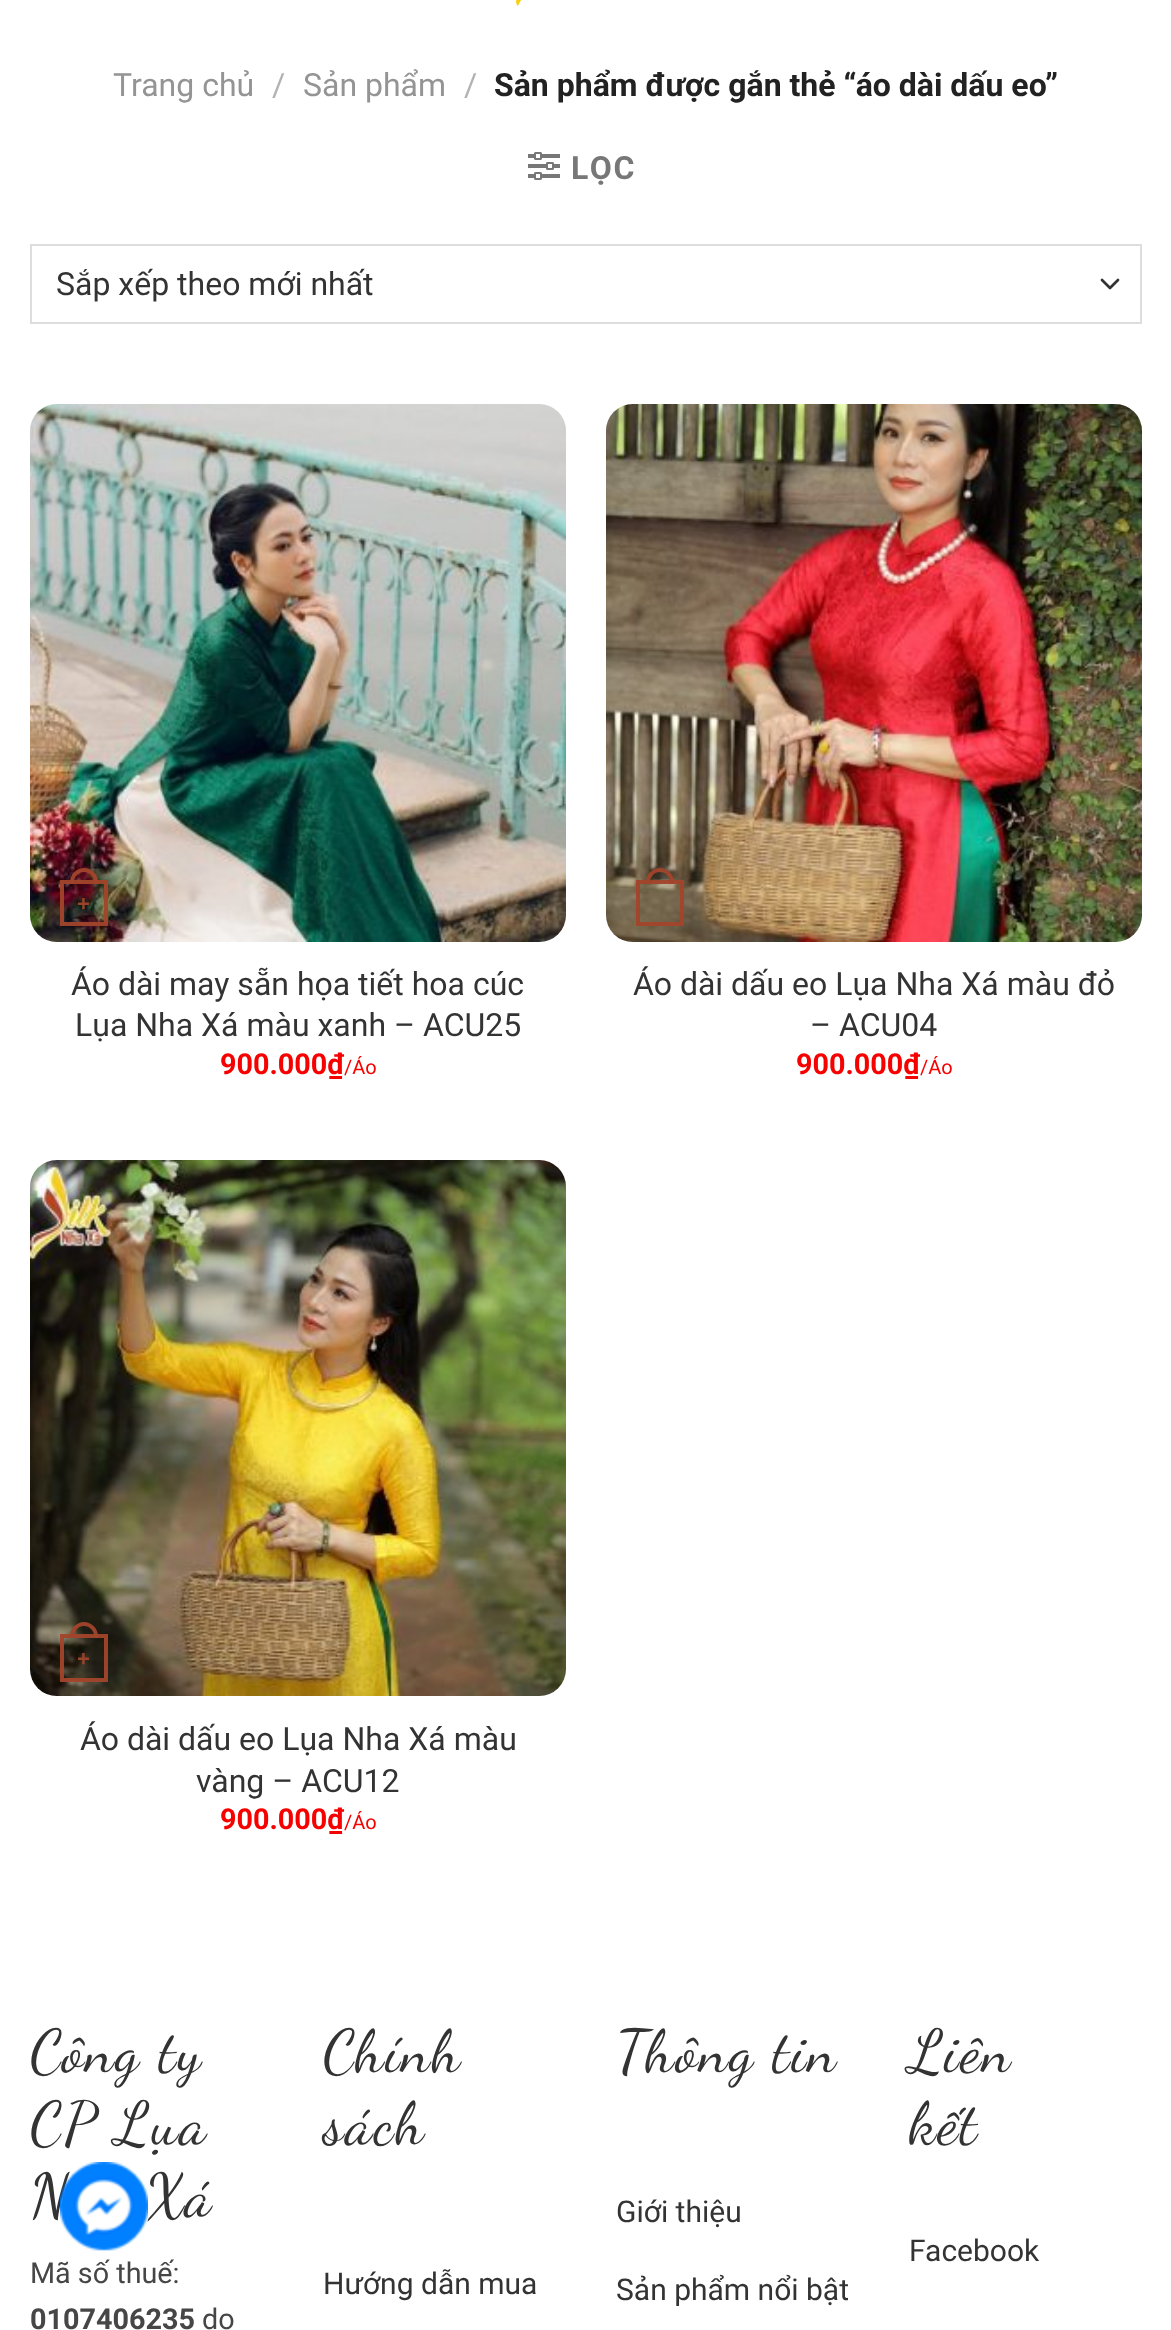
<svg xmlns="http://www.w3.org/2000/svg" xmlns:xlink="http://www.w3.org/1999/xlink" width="1171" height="2330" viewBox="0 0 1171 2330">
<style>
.cls-1{font:32px Roboto;fill:#949494}
.cls-2{font:32px Roboto;fill:#b2b2b2}
.cls-3{font:bold 32px Roboto;fill:#222222}
.cls-4{font:bold 32px Roboto;letter-spacing:1.5px;fill:#777777}
.cls-5{font:32px Roboto;fill:#333333}
.cls-6{font:bold 22px Liberation Sans;fill:#9b432a}
.cls-7{font:bold 28.75px Roboto;fill:#f60000}
.cls-8{font:20px Roboto;fill:#f60000}
.cls-9{font:60px Dancing Script;letter-spacing:2px;fill:#333333}
.cls-10{font:28.75px Roboto;fill:#474646}
.cls-11{font:bold 28.75px Roboto;fill:#474646}
.cls-12{font:30px Roboto;fill:#333333}
</style>
<rect width="100%" height="100%" fill="#ffffff"/>
<image xlink:href="image0.png" x="516" y="0" width="6" height="6"/>
<image xlink:href="image1.png" x="528" y="152" width="32" height="28"/>
<path fill="none" stroke="#333333" stroke-width="2.7" stroke-linecap="round" stroke-linejoin="round" d="M1102 280L1110 288L1118 280"/>
<rect fill="none" stroke="#dddddd" stroke-width="2" x="31" y="245" width="1110" height="78"/>
<image xlink:href="image2.png" x="30" y="404" width="536" height="538"/>
<rect fill="none" stroke="#a2452b" stroke-opacity="0.95" stroke-width="4" x="62" y="882" width="44" height="42"/>
<path fill="#a2452b" fill-opacity="0.95" fill-rule="evenodd" d="M84 868C91.5 868 98 874.5 98 882V884H70V882C70 874.5 76.5 868 84 868ZM84 872C89.5 872 94 876.5 94 882V884H74V882C74 876.5 78.5 872 84 872Z"/>
<image xlink:href="image3.png" x="606" y="404" width="536" height="538"/>
<rect fill="none" stroke="#a2452b" stroke-opacity="0.95" stroke-width="4" x="638" y="882" width="44" height="42"/>
<path fill="#a2452b" fill-opacity="0.95" fill-rule="evenodd" d="M660 868C667.5 868 674 874.5 674 882V884H646V882C646 874.5 652.5 868 660 868ZM660 872C665.5 872 670 876.5 670 882V884H650V882C650 876.5 654.5 872 660 872Z"/>
<image xlink:href="image4.png" x="30" y="1160" width="536" height="536"/>
<rect fill="none" stroke="#a2452b" stroke-opacity="0.95" stroke-width="4" x="62" y="1636" width="44" height="44"/>
<path fill="#a2452b" fill-opacity="0.95" fill-rule="evenodd" d="M84 1622C91.5 1622 98 1628.5 98 1636V1638H70V1636C70 1628.5 76.5 1622 84 1622ZM84 1626C89.5 1626 94 1630.5 94 1636V1638H74V1636C74 1630.5 78.5 1626 84 1626Z"/>
<text class="cls-1" x="113" y="96">Trang chủ</text>
<text class="cls-2" x="272" y="96">/</text>
<text class="cls-1" x="303" y="96">Sản phẩm</text>
<text class="cls-2" x="464" y="96">/</text>
<text class="cls-3" x="494" y="96">Sản phẩm được gắn thẻ “áo dài dấu eo”</text>
<text class="cls-4" x="571" y="179">LỌC</text>
<text class="cls-5" x="56" y="295">Sắp xếp theo mới nhất</text>
<text class="cls-6" x="77" y="911">+</text>
<text class="cls-5" x="71" y="995">Áo dài may sẵn họa tiết hoa cúc</text>
<text class="cls-5" x="75" y="1036">Lụa Nha Xá màu xanh – ACU25</text>
<text class="cls-7" x="220" y="1074">900.000₫</text>
<text class="cls-8" x="344" y="1074">/Áo</text>
<text class="cls-5" x="633" y="995">Áo dài dấu eo Lụa Nha Xá màu đỏ</text>
<text class="cls-5" x="810" y="1036">– ACU04</text>
<text class="cls-7" x="796" y="1074">900.000₫</text>
<text class="cls-8" x="920" y="1074">/Áo</text>
<text class="cls-6" x="77" y="1666">+</text>
<text class="cls-5" x="80" y="1750">Áo dài dấu eo Lụa Nha Xá màu</text>
<text class="cls-5" x="196" y="1792">vàng – ACU12</text>
<text class="cls-7" x="220" y="1829">900.000₫</text>
<text class="cls-8" x="344" y="1829">/Áo</text>
<text class="cls-9"><tspan x="30" y="2071">Công ty</tspan><tspan x="30" y="2143">CP Lụa</tspan><tspan x="30" y="2215">N</tspan></text>
<text class="cls-9" x="146" y="2215">Xá</text>
<text class="cls-10" x="30" y="2283">Mã số thuế:</text>
<text class="cls-11" x="30" y="2329">0107406235</text>
<text class="cls-10" x="202" y="2329">do</text>
<text class="cls-9"><tspan x="323" y="2071">Chính</tspan><tspan x="323" y="2143">sách</tspan></text>
<text class="cls-12" x="323" y="2294">Hướng dẫn mua</text>
<text class="cls-9" x="616" y="2071">Thông tin</text>
<text class="cls-12" x="616" y="2222">Giới thiệu</text>
<text class="cls-12" x="616" y="2300">Sản phẩm nổi bật</text>
<text class="cls-9"><tspan x="909" y="2071">Liên</tspan><tspan x="909" y="2143">kết</tspan></text>
<text class="cls-12" x="909" y="2261">Facebook</text>
<image xlink:href="image5.png" x="60" y="2162" width="88" height="89"/>
</svg>
